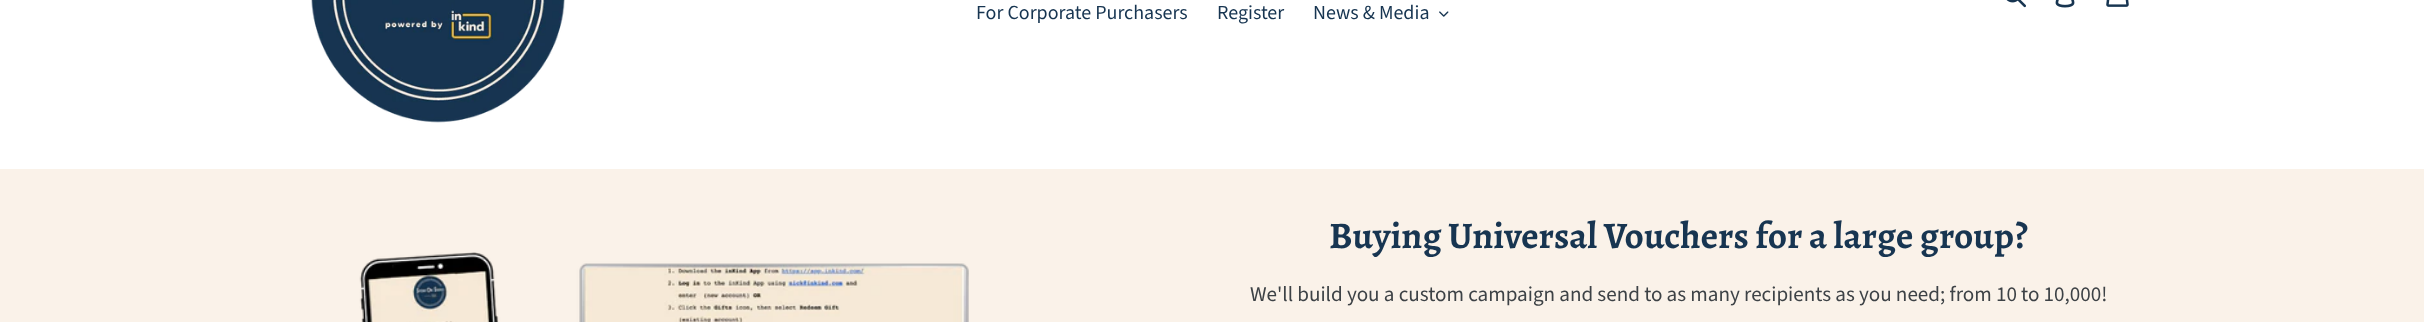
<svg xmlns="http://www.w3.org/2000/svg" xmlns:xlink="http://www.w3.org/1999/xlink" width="2424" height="322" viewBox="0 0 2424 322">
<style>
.cls-1{font:20px Source Sans Pro;fill:#173551}
.cls-2{font:bold 37.5px Alegreya;fill:#173551}
.cls-3{font:21.1px Source Sans Pro;fill:#3d4246}
</style>
<rect width="100%" height="100%" fill="#ffffff"/>
<image xlink:href="image0.png" x="311" y="0" width="254" height="123"/>
<image xlink:href="image1.png" x="1439" y="11" width="10" height="6"/>
<image xlink:href="image2.png" x="2006" y="0" width="20" height="8"/>
<image xlink:href="image3.png" x="2055" y="0" width="20" height="8"/>
<image xlink:href="image4.png" x="2106" y="0" width="23" height="7"/>
<rect fill="#faf2e9" x="0" y="169" width="2424" height="153"/>
<image xlink:href="image5.png" x="359" y="252" width="610" height="70"/>
<text class="cls-1" x="976" y="19">For Corporate Purchasers</text>
<text class="cls-1" x="1217" y="19">Register</text>
<text class="cls-1" x="1313" y="19">News &amp; Media</text>
<text class="cls-2" x="1329" y="248">Buying Universal Vouchers for a large group?</text>
<text class="cls-3" x="1250" y="301">We'll build you a custom campaign and send to as many recipients as you need; from 10 to 10,000!</text>
</svg>
